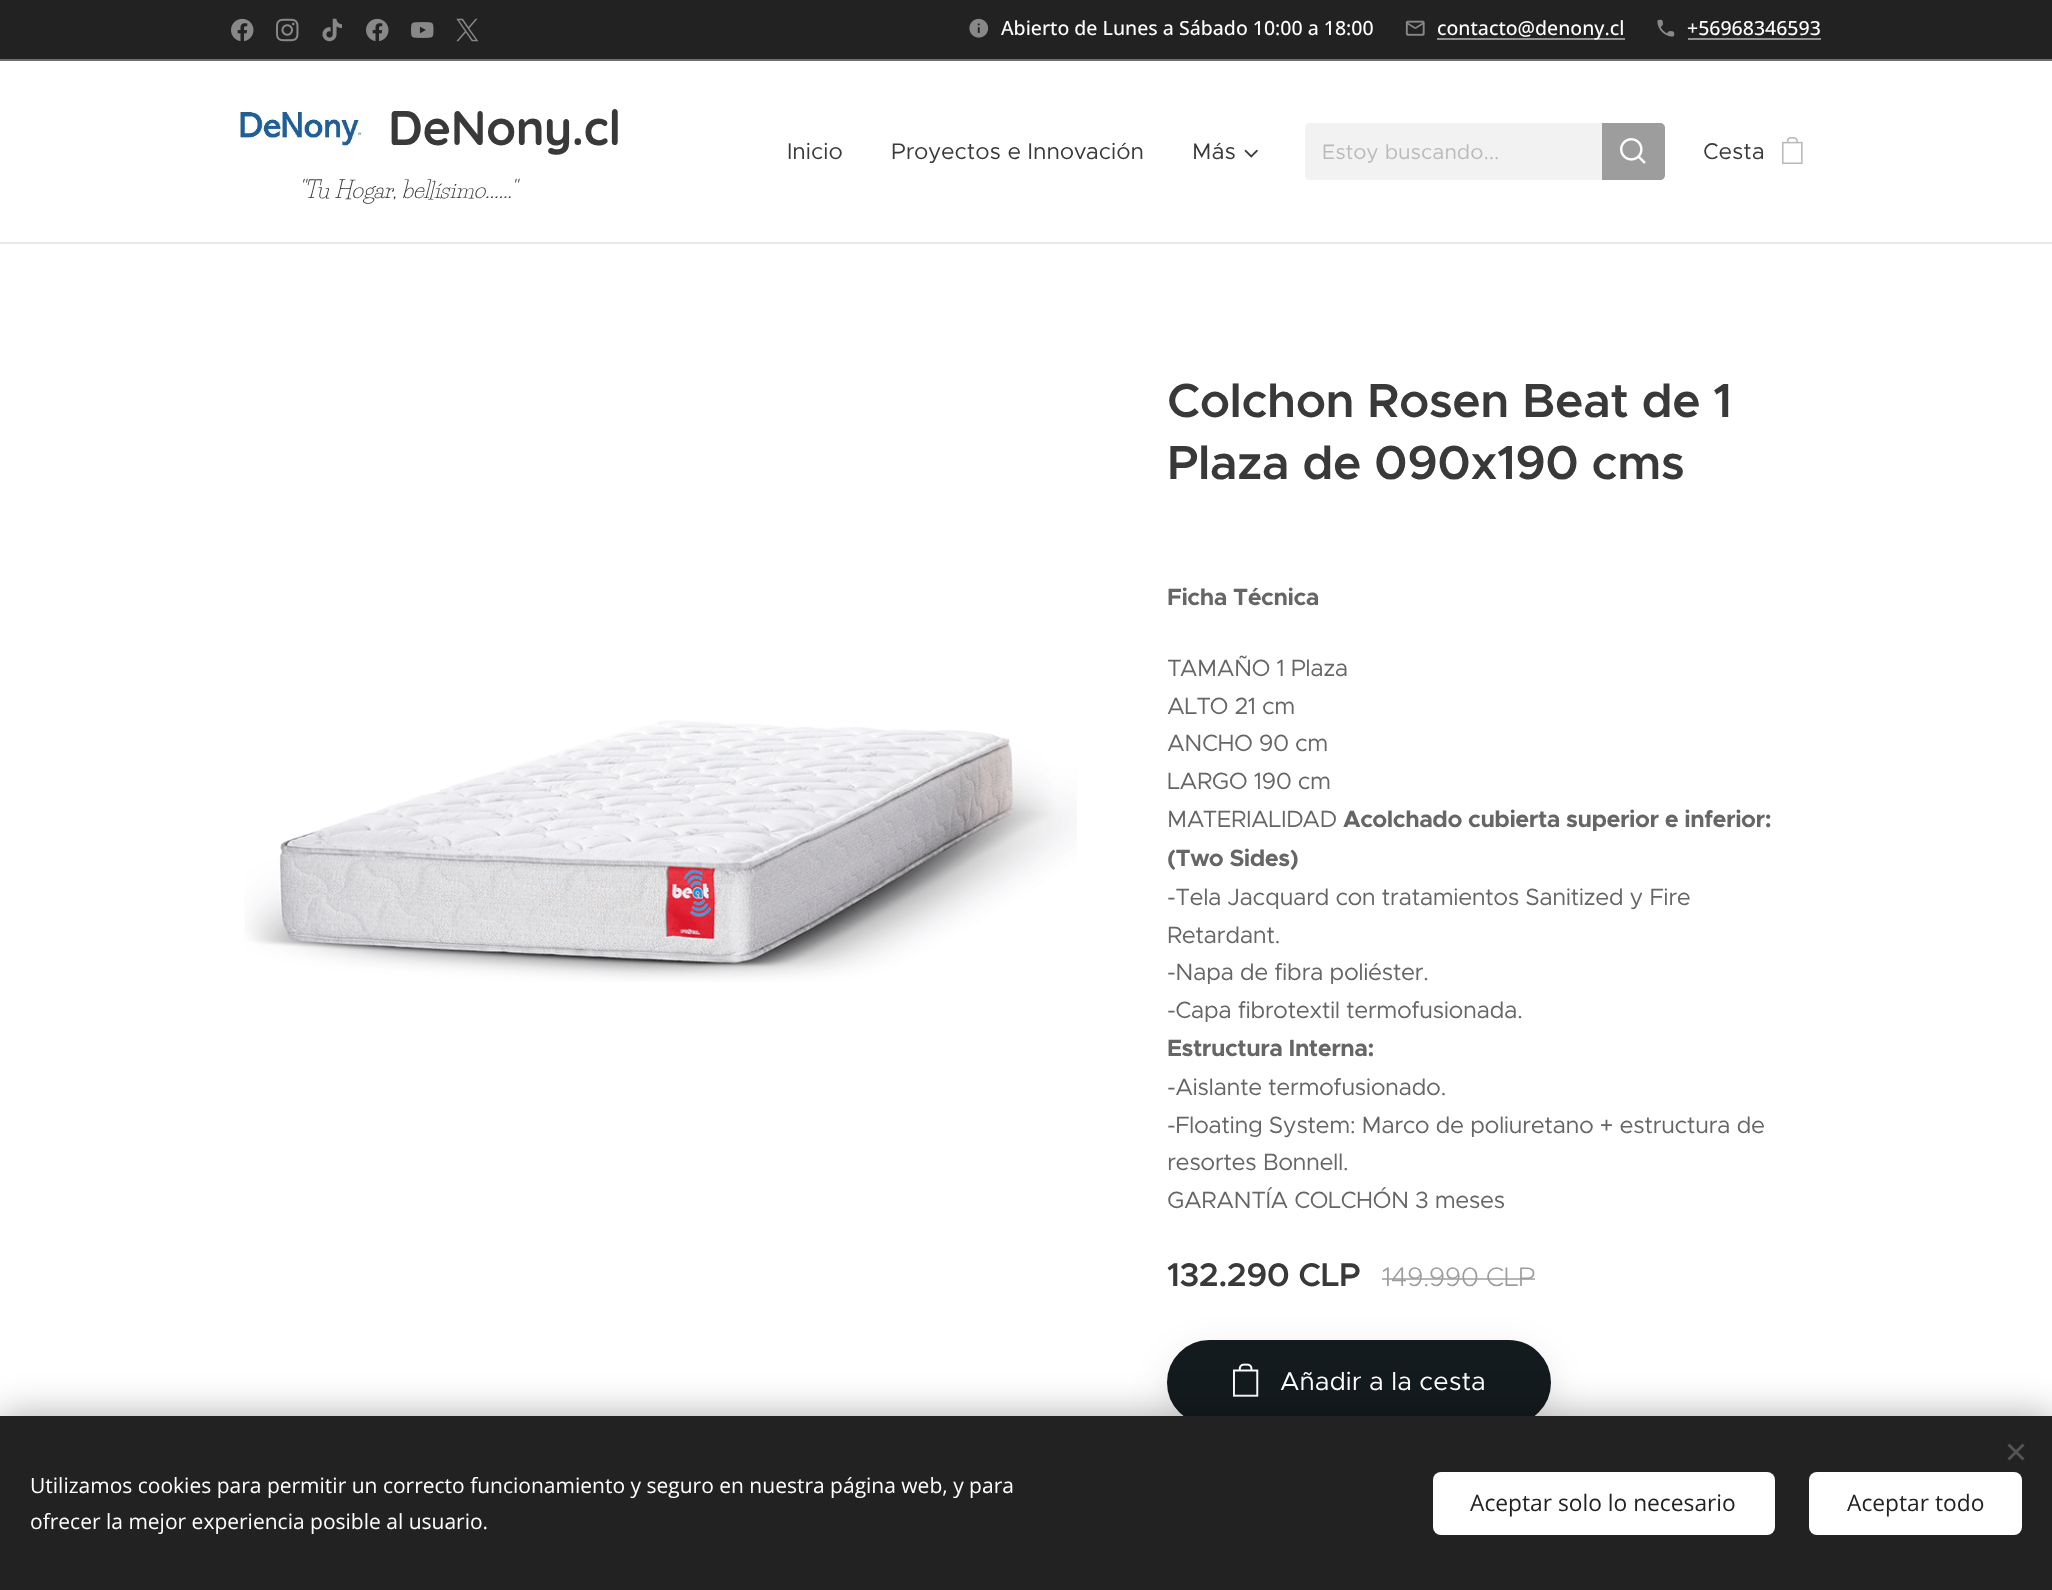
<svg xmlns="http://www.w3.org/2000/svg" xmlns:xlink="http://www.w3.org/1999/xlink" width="2052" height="1590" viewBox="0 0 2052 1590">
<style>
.cls-1{font:500 19.5px Open Sans;fill:#ffffff}
.cls-2{font:bold 48.5px Quicksand;letter-spacing:-0.48px;fill:#393939}
.cls-3{font:italic 22.75px Life Savers;fill:#393939}
.cls-4{font:22.75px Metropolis;fill:#393939}
.cls-5{font:21px Metropolis;fill:#bababa}
.cls-6{font:600 48px Metropolis;letter-spacing:-0.48px;fill:#393939}
.cls-7{font:bold 23.55px Metropolis;letter-spacing:-0.48px;fill:#666666}
.cls-8{font:23.55px Metropolis;letter-spacing:-0.48px;fill:#666666}
.cls-9{font:600 33px Metropolis;letter-spacing:-0.48px;fill:#393939}
.cls-10{font:300 27px Metropolis;letter-spacing:-0.48px;fill:#9d9d9d}
.cls-11{font:25.75px Metropolis;fill:#ffffff}
.cls-12{font:21px Open Sans;fill:#ffffff}
.cls-13{font:22.75px Open Sans;fill:#222222}
</style>
<rect width="100%" height="100%" fill="#ffffff"/>
<rect fill="#222222" x="0" y="0" width="2052" height="59"/>
<image xlink:href="image0.png" x="231" y="18" width="23" height="24"/>
<image xlink:href="image1.png" x="276" y="18" width="23" height="24"/>
<image xlink:href="image2.png" x="322" y="18" width="20" height="24"/>
<image xlink:href="image0.png" x="366" y="18" width="23" height="24"/>
<image xlink:href="image3.png" x="411" y="22" width="23" height="16"/>
<image xlink:href="image4.png" x="456" y="18" width="23" height="24"/>
<image xlink:href="image5.png" x="969" y="18" width="20" height="20"/>
<image xlink:href="image6.png" x="1405" y="20" width="20" height="16"/>
<rect fill="#919191" x="1437" y="38" width="188" height="2"/>
<image xlink:href="image7.png" x="1657" y="19" width="18" height="18"/>
<rect fill="#919191" x="1688" y="38" width="133" height="2"/>
<rect fill="#6e6e6e" x="0" y="59" width="2052" height="2"/>
<image xlink:href="image8.png" x="240" y="112" width="121" height="34"/>
<image xlink:href="image9.png" x="1244" y="149" width="14" height="9"/>
<path fill="#f2f2f2" d="M1310 123H1602V180H1310C1307 180 1305 178 1305 175V128C1305 125 1307 123 1310 123Z"/>
<path fill="#9d9d9d" d="M1602 123H1660C1663 123 1665 125 1665 128V175C1665 178 1663 180 1660 180H1602Z"/>
<image xlink:href="image10.png" x="1620" y="138" width="26" height="26"/>
<image xlink:href="image11.png" x="1782" y="137" width="21" height="28"/>
<rect fill="#e8e8e8" x="0" y="242" width="2052" height="2"/>
<image xlink:href="image12.png" x="244" y="720" width="833" height="262"/>
<rect fill="#000000" fill-opacity="0.1" filter="blur(19px)" x="1167" y="1352" width="384" height="85" rx="42.5"/>
<rect fill="#141b1e" stroke="#141b1e" stroke-width="2" x="1168" y="1341" width="382" height="83" rx="41.5"/>
<image xlink:href="image13.png" x="1233" y="1363" width="26" height="34"/>
<rect fill="#000000" fill-opacity="0.33" filter="blur(19px)" x="0" y="1416" width="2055" height="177"/>
<rect fill="#222222" x="0" y="1416" width="2052" height="174"/>
<path fill="#555555" d="M2007.5 1458.5L2022.5 1443.5L2024.5 1445.5L2009.5 1460.5Z"/>
<path fill="#555555" d="M2009.5 1443.5L2024.5 1458.5L2022.5 1460.5L2007.5 1445.5Z"/>
<rect fill="#ffffff" x="1433" y="1472" width="342" height="63" rx="8"/>
<rect fill="#ffffff" x="1809" y="1472" width="213" height="63" rx="8"/>
<text class="cls-1" x="1001" y="35">Abierto de Lunes a Sábado 10:00 a 18:00</text>
<text class="cls-1" x="1437" y="35">contacto@denony.cl</text>
<text class="cls-1" x="1687" y="35">+56968346593</text>
<text class="cls-2" x="388" y="145">DeNony.cl</text>
<text class="cls-3" x="298" y="198">"Tu Hogar, bellísimo......"</text>
<text class="cls-4" x="787" y="159">Inicio</text>
<text class="cls-4" x="891" y="159">Proyectos e Innovación</text>
<text class="cls-4" x="1192" y="159">Más</text>
<text class="cls-5" x="1322" y="159">Estoy buscando...</text>
<text class="cls-4" x="1703" y="159">Cesta</text>
<text class="cls-6"><tspan x="1167" y="417">Colchon Rosen Beat de 1</tspan><tspan x="1167" y="479">Plaza de 090x190 cms</tspan></text>
<text class="cls-7" x="1167" y="605">Ficha Técnica</text>
<text class="cls-8"><tspan x="1167" y="676">TAMAÑO 1 Plaza</tspan><tspan x="1167" y="714">ALTO 21 cm</tspan><tspan x="1167" y="751">ANCHO 90 cm</tspan><tspan x="1167" y="789">LARGO 190 cm</tspan><tspan x="1167" y="827">MATERIALIDAD</tspan></text>
<text class="cls-7" x="1343" y="827">Acolchado cubierta superior e inferior:</text>
<text class="cls-7" x="1167" y="866">(Two Sides)</text>
<text class="cls-8"><tspan x="1167" y="905">-Tela Jacquard con tratamientos Sanitized y Fire</tspan><tspan x="1167" y="943">Retardant.</tspan><tspan x="1167" y="980">-Napa de fibra poliéster.</tspan><tspan x="1167" y="1018">-Capa fibrotextil termofusionada.</tspan></text>
<text class="cls-7" x="1167" y="1056">Estructura Interna:</text>
<text class="cls-8"><tspan x="1167" y="1095">-Aislante termofusionado.</tspan><tspan x="1167" y="1133">-Floating System: Marco de poliuretano + estructura de</tspan><tspan x="1167" y="1170">resortes Bonnell.</tspan><tspan x="1167" y="1208">GARANTÍA COLCHÓN 3 meses</tspan></text>
<text class="cls-9" x="1167" y="1286">132.290 CLP</text>
<text class="cls-10" x="1382" y="1286">149.990 CLP</text>
<rect fill="#9d9d9d" fill-opacity="0.75" x="1382" y="1278" width="153" height="2"/>
<text class="cls-11" x="1280" y="1390">Añadir a la cesta</text>
<text class="cls-12"><tspan x="30" y="1493">Utilizamos cookies para permitir un correcto funcionamiento y seguro en nuestra página web, y para</tspan><tspan x="30" y="1529">ofrecer la mejor experiencia posible al usuario.</tspan></text>
<text class="cls-13" x="1470" y="1511">Aceptar solo lo necesario</text>
<text class="cls-13" x="1847" y="1511">Aceptar todo</text>
</svg>
